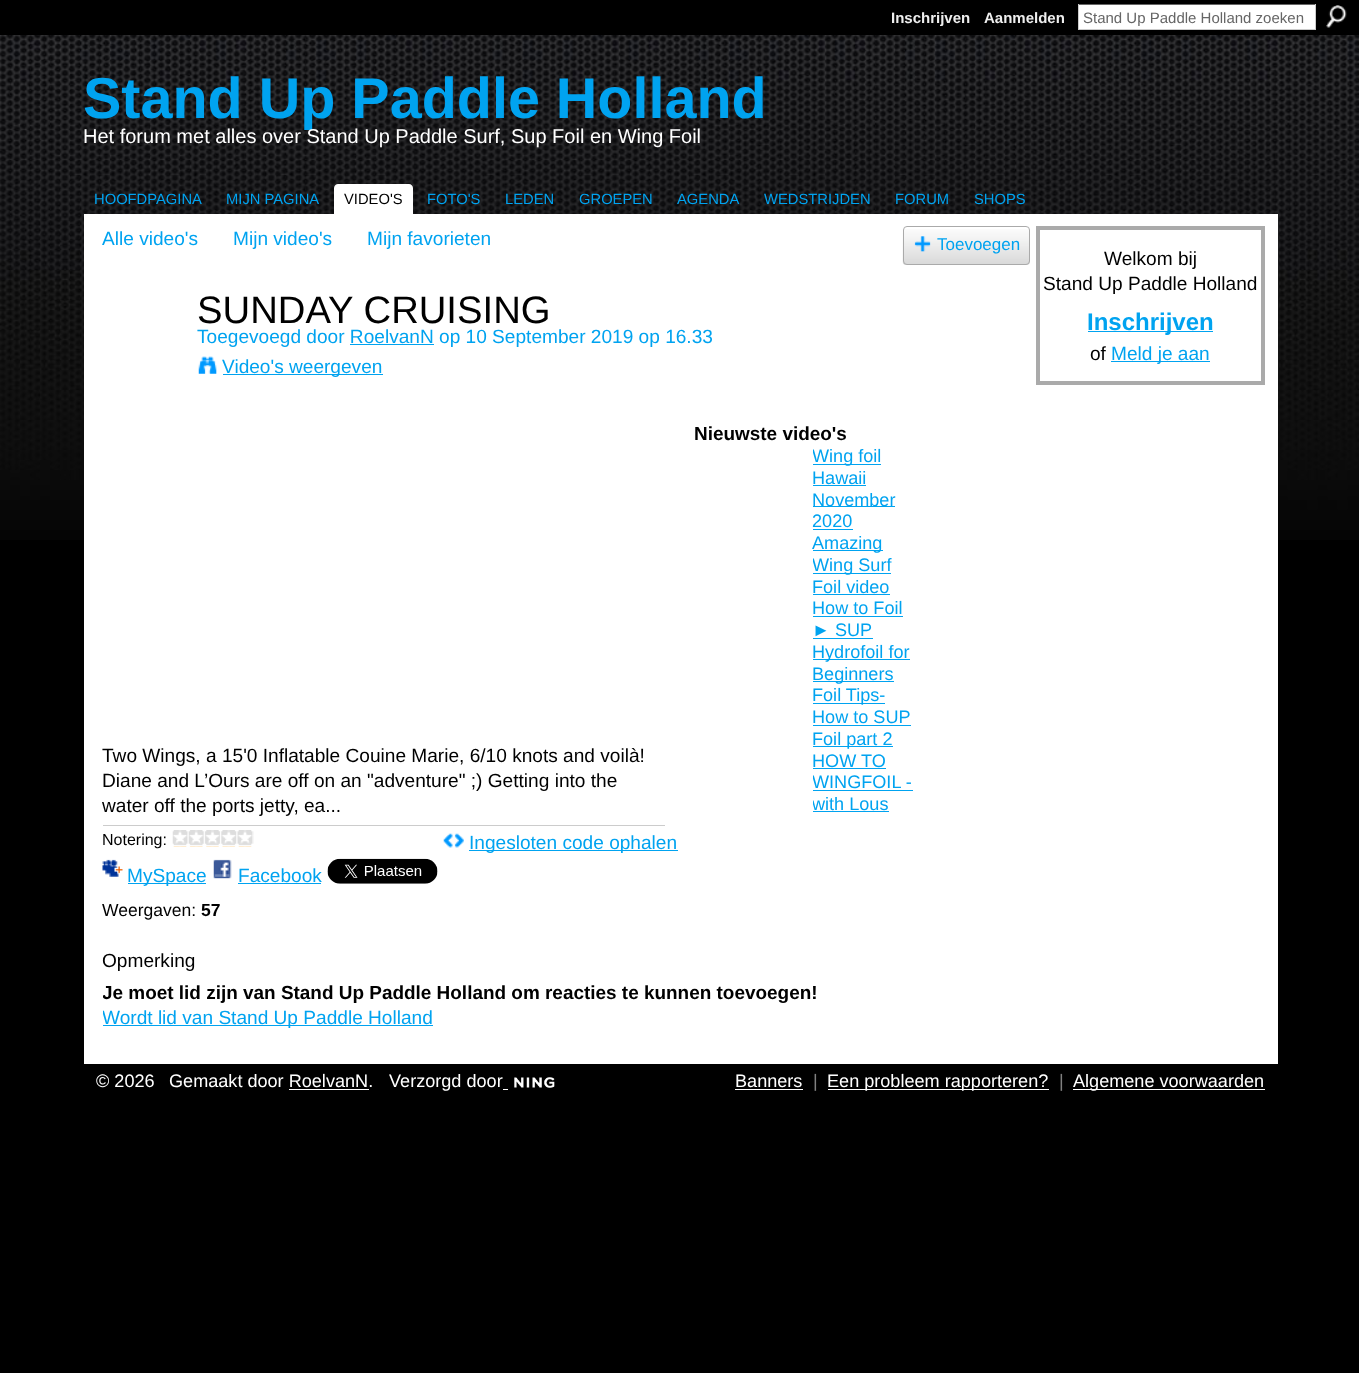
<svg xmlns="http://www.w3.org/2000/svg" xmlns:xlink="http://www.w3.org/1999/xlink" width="1359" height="1373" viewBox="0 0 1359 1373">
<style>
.cls-1{font:bold 15px Liberation Sans;fill:#eeeeee}
.cls-2{font:15px Liberation Sans;fill:#666666}
.cls-3{font:bold 57.5px Liberation Sans;fill:#00a3f0}
.cls-4{font:20px Liberation Sans;fill:#ffffff}
.cls-5{font:14.75px Liberation Sans;fill:#00a3f0}
.cls-6{font:14.75px Liberation Sans;fill:#000000}
.cls-7{font:19.1px Liberation Sans;fill:#00a3f0}
.cls-8{font:17px Liberation Sans;fill:#00a3f0}
.cls-9{font:38.25px Liberation Sans;fill:#000000}
.cls-10{font:bold 18.95px Liberation Sans;fill:#000000}
.cls-11{font:18.1px Liberation Sans;fill:#00a3f0}
.cls-12{font:19.1px Liberation Sans;fill:#000000}
.cls-13{font:16px Liberation Sans;fill:#000000}
.cls-14{font:17.5px Liberation Sans;fill:#000000}
.cls-15{font:bold 17.5px Liberation Sans;fill:#000000}
.cls-16{font:bold 24px Liberation Sans;fill:#00a3f0}
.cls-17{font:18.1px Liberation Sans;fill:#ffffff}
.cls-18{font:18.1px Liberation Sans;fill:#808080}
</style>
<defs>
<clipPath id="clip1"><rect x="813" y="446" width="111" height="87"/></clipPath>
<clipPath id="clip2"><rect x="813" y="533" width="111" height="66"/></clipPath>
<clipPath id="clip3"><rect x="813" y="750" width="111" height="66"/></clipPath>
<clipPath id="clip4"><rect x="103" y="980" width="921" height="25"/></clipPath>
<clipPath id="clip5"><rect x="103" y="1005" width="921" height="25"/></clipPath>
</defs>
<rect width="100%" height="100%" fill="#000000"/>
<image xlink:href="image0.png" x="0" y="35" width="1359" height="505"/>
<rect fill="#ffffff" x="1079" y="5" width="236" height="24"/>
<rect fill="#666666" x="1078" y="4" width="238" height="1"/>
<rect fill="#cccccc" x="1315" y="4" width="1" height="26"/>
<rect fill="#cccccc" x="1078" y="29" width="238" height="1"/>
<rect fill="#cccccc" x="1078" y="4" width="1" height="26"/>
<image xlink:href="image1.png" x="1326" y="5" width="21" height="23"/>
<path fill="#ffffff" d="M338 184H409C411 184 413 186 413 188V214H334V188C334 186 336 184 338 184Z"/>
<rect fill="#ffffff" x="84" y="214" width="1194" height="850"/>
<image xlink:href="image2.png" x="902" y="229" width="128" height="36"/>
<rect fill="none" stroke="#aaaaaa" x="903.5" y="226.5" width="126" height="38" rx="3.5"/>
<image xlink:href="image3.png" x="914" y="236" width="17" height="16"/>
<rect fill="#00a3f0" x="350" y="344" width="84" height="1"/>
<image xlink:href="image4.png" x="198" y="356" width="19" height="18"/>
<rect fill="#00a3f0" x="223" y="374" width="160" height="1"/>
<rect fill="#00a3f0" x="813" y="464" width="68" height="1"/>
<rect fill="#00a3f0" x="813" y="485" width="53" height="1"/>
<rect fill="#00a3f0" x="813" y="506" width="82" height="1"/>
<rect fill="#00a3f0" x="813" y="529" width="40" height="1"/>
<rect fill="#00a3f0" x="813" y="550" width="70" height="1"/>
<rect fill="#00a3f0" x="813" y="573" width="78" height="1"/>
<rect fill="#00a3f0" x="813" y="594" width="77" height="1"/>
<rect fill="#00a3f0" x="813" y="616" width="90" height="1"/>
<rect fill="#00a3f0" x="813" y="638" width="60" height="1"/>
<rect fill="#00a3f0" x="813" y="659" width="97" height="1"/>
<rect fill="#00a3f0" x="813" y="681" width="81" height="1"/>
<rect fill="#00a3f0" x="813" y="703" width="72" height="1"/>
<rect fill="#00a3f0" x="813" y="725" width="98" height="1"/>
<rect fill="#00a3f0" x="813" y="746" width="80" height="1"/>
<rect fill="#00a3f0" x="813" y="768" width="73" height="1"/>
<rect fill="#00a3f0" x="813" y="790" width="100" height="1"/>
<rect fill="#00a3f0" x="813" y="811" width="76" height="1"/>
<rect fill="#cccccc" x="103" y="825" width="562" height="1"/>
<image xlink:href="image5.png" x="172" y="830" width="82" height="17"/>
<image xlink:href="image6.png" x="102" y="859" width="21" height="18"/>
<rect fill="#00a3f0" x="128" y="883" width="78" height="1"/>
<image xlink:href="image7.png" x="213" y="859" width="19" height="20"/>
<rect fill="#00a3f0" x="238" y="883" width="83" height="1"/>
<image xlink:href="image8.png" x="327" y="858" width="111" height="26"/>
<image xlink:href="image9.png" x="443" y="833" width="21" height="15"/>
<rect fill="#00a3f0" x="469" y="850" width="209" height="1"/>
<rect fill="#00a3f0" x="103" y="1025" width="330" height="1"/>
<rect fill="none" stroke="#aaaaaa" stroke-width="4" x="1038" y="228" width="225" height="155"/>
<rect fill="#00a3f0" x="1088" y="331" width="125" height="1"/>
<rect fill="#00a3f0" x="1111" y="361" width="99" height="1"/>
<image xlink:href="image10.png" x="514" y="1077" width="41" height="11"/>
<rect fill="#ffffff" x="289" y="1089" width="80" height="1"/>
<rect fill="#ffffff" x="503" y="1089" width="5" height="1"/>
<rect fill="#ffffff" x="735" y="1089" width="68" height="1"/>
<rect fill="#ffffff" x="828" y="1089" width="221" height="1"/>
<rect fill="#ffffff" x="1073" y="1089" width="192" height="1"/>
<text class="cls-1" x="891" y="23">Inschrijven</text>
<text class="cls-1" x="984" y="23">Aanmelden</text>
<text class="cls-2" x="1083" y="23">Stand Up Paddle Holland zoeken</text>
<text class="cls-3" x="83" y="118">Stand Up Paddle Holland</text>
<text class="cls-4" x="83" y="143">Het forum met alles over Stand Up Paddle Surf, Sup Foil en Wing Foil</text>
<text class="cls-5" x="94" y="204">HOOFDPAGINA</text>
<text class="cls-5" x="226" y="204">MIJN PAGINA</text>
<text class="cls-6" x="344" y="204">VIDEO'S</text>
<text class="cls-5" x="427" y="204">FOTO'S</text>
<text class="cls-5" x="505" y="204">LEDEN</text>
<text class="cls-5" x="579" y="204">GROEPEN</text>
<text class="cls-5" x="677" y="204">AGENDA</text>
<text class="cls-5" x="764" y="204">WEDSTRIJDEN</text>
<text class="cls-5" x="895" y="204">FORUM</text>
<text class="cls-5" x="974" y="204">SHOPS</text>
<text class="cls-7" x="102" y="245">Alle video's</text>
<text class="cls-7" x="233" y="245">Mijn video's</text>
<text class="cls-7" x="367" y="245">Mijn favorieten</text>
<text class="cls-8" x="937" y="250">Toevoegen</text>
<text class="cls-9" x="197" y="323">SUNDAY CRUISING</text>
<text class="cls-7" x="197" y="343">Toegevoegd door RoelvanN op 10 September 2019 op 16.33</text>
<text class="cls-7" x="222" y="373">Video's weergeven</text>
<text class="cls-10" x="694" y="440">Nieuwste video's</text>
<g clip-path="url(#clip1)">
<text class="cls-11" x="812" y="462">Wing foil</text>
</g>
<text class="cls-11"><tspan x="812" y="484">Hawaii</tspan><tspan x="812" y="506">November</tspan><tspan x="812" y="527">2020</tspan><tspan x="812" y="549">Amazing</tspan></text>
<g clip-path="url(#clip2)">
<text class="cls-11" x="812" y="571">Wing Surf</text>
</g>
<text class="cls-11"><tspan x="812" y="593">Foil video</tspan><tspan x="812" y="614">How to Foil</tspan><tspan x="812" y="636">► SUP</tspan><tspan x="812" y="658">Hydrofoil for</tspan><tspan x="812" y="680">Beginners</tspan><tspan x="812" y="701">Foil Tips-</tspan><tspan x="812" y="723">How to SUP</tspan><tspan x="812" y="745">Foil part 2</tspan><tspan x="812" y="767">HOW TO</tspan></text>
<g clip-path="url(#clip3)">
<text class="cls-11"><tspan x="812" y="788">WINGFOIL -</tspan><tspan x="812" y="810">with Lous</tspan></text>
</g>
<text class="cls-12"><tspan x="102" y="762">Two Wings, a 15'0 Inflatable Couine Marie, 6/10 knots and voilà!</tspan><tspan x="102" y="787">Diane and L’Ours are off on an "adventure" ;) Getting into the</tspan><tspan x="102" y="812">water off the ports jetty, ea...</tspan></text>
<text class="cls-13" x="102" y="845">Notering:</text>
<text class="cls-7" x="127" y="882">MySpace</text>
<text class="cls-7" x="238" y="882">Facebook</text>
<text class="cls-14" x="102" y="916">Weergaven:</text>
<text class="cls-15" x="201" y="916">57</text>
<text class="cls-7" x="469" y="849">Ingesloten code ophalen</text>
<text class="cls-12" x="102" y="967">Opmerking</text>
<g clip-path="url(#clip4)">
<text class="cls-10" x="102" y="999">Je moet lid zijn van Stand Up Paddle Holland om reacties te kunnen toevoegen!</text>
</g>
<g clip-path="url(#clip5)">
<text class="cls-7" x="102" y="1024">Wordt lid van Stand Up Paddle Holland</text>
</g>
<text class="cls-12" x="1104" y="265">Welkom bij</text>
<text class="cls-12" x="1043" y="290">Stand Up Paddle Holland</text>
<text class="cls-16" x="1087" y="330">Inschrijven</text>
<text class="cls-12" x="1090" y="360">of</text>
<text class="cls-7" x="1111" y="360">Meld je aan</text>
<text class="cls-17" x="96" y="1087">© 2026</text>
<text class="cls-17" x="169" y="1087">Gemaakt door RoelvanN.</text>
<text class="cls-17" x="389" y="1087">Verzorgd door</text>
<text class="cls-17" x="735" y="1087">Banners</text>
<text class="cls-18" x="813" y="1087">|</text>
<text class="cls-17" x="827" y="1087">Een probleem rapporteren?</text>
<text class="cls-18" x="1059" y="1087">|</text>
<text class="cls-17" x="1073" y="1087">Algemene voorwaarden</text>
</svg>
